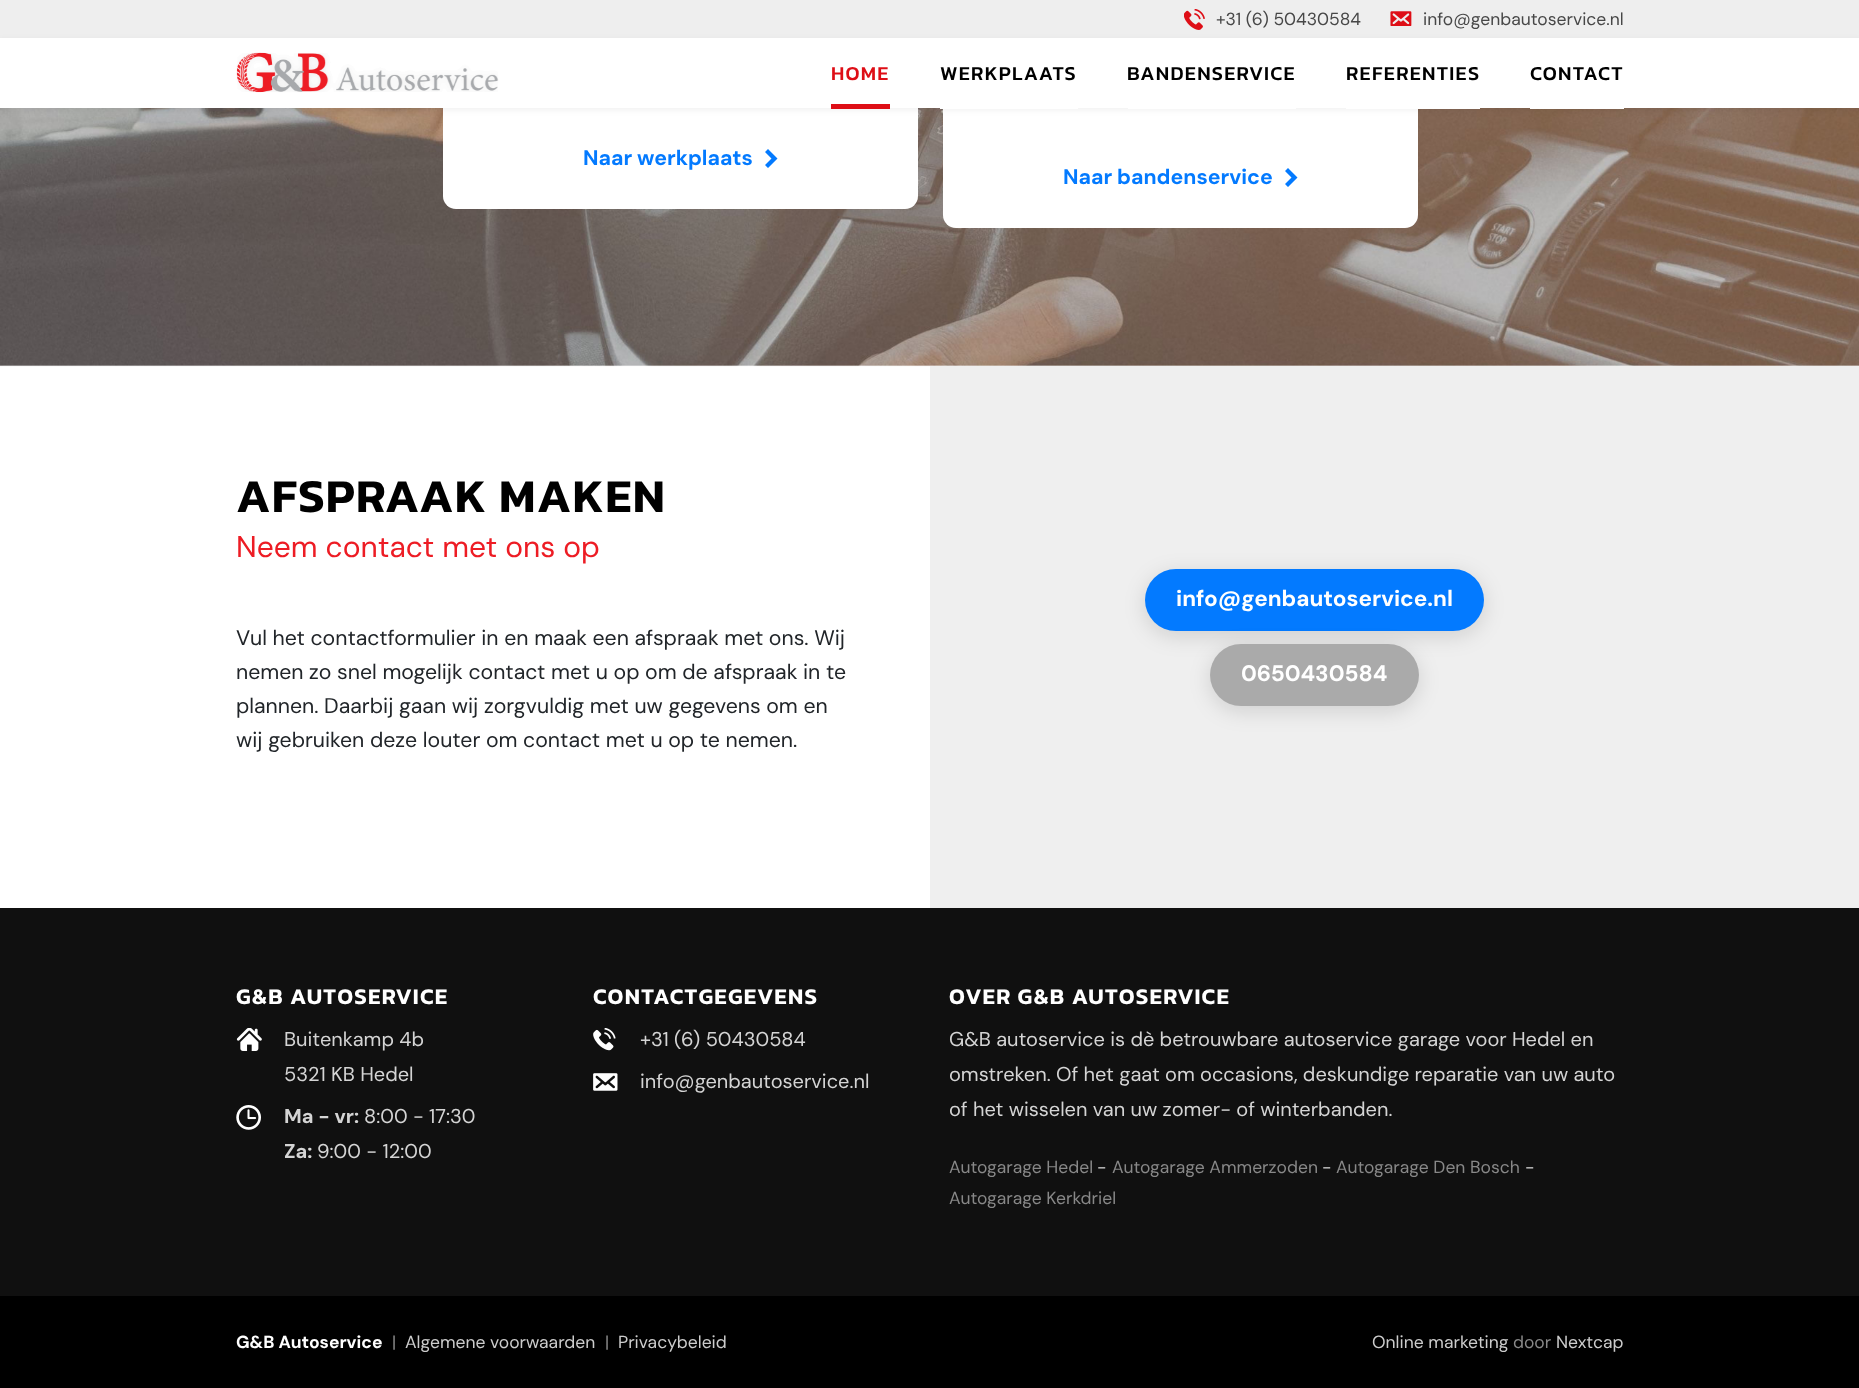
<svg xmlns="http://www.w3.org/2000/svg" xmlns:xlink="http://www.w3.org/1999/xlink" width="1859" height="1388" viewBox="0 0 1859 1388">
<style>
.cls-1{font:17.5px DM Sans;fill:#474747}
.cls-2{font:500 20px Kanit;letter-spacing:1.25px;fill:#de0e16}
.cls-3{font:500 20px Kanit;letter-spacing:1.25px;fill:#000000}
.cls-4{font:bold 21.25px DM Sans;fill:#037aff}
.cls-5{font:600 47.5px Kanit;letter-spacing:1.25px;fill:#000000}
.cls-6{font:30px DM Sans;fill:#ed1c24}
.cls-7{font:21.25px DM Sans;fill:#212529}
.cls-8{font:bold 22.5px DM Sans;fill:#ffffff}
.cls-9{font:600 22.5px Kanit;letter-spacing:1.25px;fill:#ffffff}
.cls-10{font:20px DM Sans;fill:#d4d4d4}
.cls-11{font:bold 20px DM Sans;fill:#d4d4d4}
.cls-12{font:17.5px DM Sans;fill:#888888}
.cls-13{font:17.5px DM Sans;fill:#d4d4d4}
.cls-14{font:bold 17.5px DM Sans;fill:#ffffff}
.cls-15{font:17.5px DM Sans;fill:#cccccc}
</style>
<rect width="100%" height="100%" fill="#ffffff"/>
<image xlink:href="image3.png" x="0" y="108" width="1859" height="259"/>
<rect fill="#ffffff" x="443" y="-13" width="475" height="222" rx="13"/>
<rect fill="#ffffff" x="943" y="-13" width="475" height="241" rx="13"/>
<rect fill="#eeeeee" x="0" y="0" width="1859" height="38"/>
<image xlink:href="image0.png" x="1184" y="9" width="21" height="21"/>
<image xlink:href="image1.png" x="1390" y="11" width="22" height="15"/>
<rect fill="#000000" fill-opacity="0.06" filter="blur(3px)" x="0" y="40" width="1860" height="70"/>
<rect fill="#ffffff" x="0" y="38" width="1859" height="70"/>
<image xlink:href="image2.png" x="236" y="52" width="263" height="41"/>
<rect fill="#de0e16" x="831" y="104" width="59" height="5"/>
<rect fill="#ffffff" x="940" y="108" width="138" height="1"/>
<rect fill="#ffffff" x="1128" y="108" width="168" height="1"/>
<rect fill="#ffffff" x="1346" y="108" width="134" height="1"/>
<rect fill="#ffffff" x="1530" y="108" width="94" height="1"/>
<path fill="#037aff" d="M768 149L765 152L771.5 158.5L765 165L768 168L777.5 158.5Z"/>
<path fill="#037aff" d="M1288 168L1285 171L1291.5 177.5L1285 184L1288 187L1297.5 177.5Z"/>
<rect fill="#efefef" x="930" y="366" width="929" height="542"/>
<rect fill="#000000" fill-opacity="0.13" filter="blur(10.5px)" x="1145" y="574" width="339" height="62" rx="31"/>
<rect fill="#037aff" x="1145" y="569" width="339" height="62" rx="31"/>
<rect fill="#000000" fill-opacity="0.13" filter="blur(10.5px)" x="1210" y="649" width="209" height="62" rx="31"/>
<rect fill="#aaaaaa" x="1210" y="644" width="209" height="62" rx="31"/>
<rect fill="#101010" x="0" y="908" width="1859" height="388"/>
<image xlink:href="image4.png" x="236" y="1028" width="26" height="23"/>
<image xlink:href="image5.png" x="236" y="1105" width="25" height="25"/>
<image xlink:href="image6.png" x="593" y="1028" width="23" height="23"/>
<image xlink:href="image7.png" x="593" y="1073" width="25" height="18"/>
<rect fill="#000000" x="0" y="1296" width="1859" height="92"/>
<text class="cls-1" x="1216" y="25">+31 (6) 50430584</text>
<text class="cls-1" x="1423" y="25">info@genbautoservice.nl</text>
<text class="cls-2" x="831" y="80">HOME</text>
<text class="cls-3" x="940" y="80">WERKPLAATS</text>
<text class="cls-3" x="1127" y="80">BANDENSERVICE</text>
<text class="cls-3" x="1346" y="80">REFERENTIES</text>
<text class="cls-3" x="1530" y="80">CONTACT</text>
<text class="cls-4" x="583" y="165">Naar werkplaats</text>
<text class="cls-4" x="1063" y="184">Naar bandenservice</text>
<text class="cls-5" x="236" y="512">AFSPRAAK MAKEN</text>
<text class="cls-6" x="236" y="557">Neem contact met ons op</text>
<text class="cls-7"><tspan x="236" y="645">Vul het contactformulier in en maak een afspraak met ons. Wij</tspan><tspan x="236" y="679">nemen zo snel mogelijk contact met u op om de afspraak in te</tspan><tspan x="236" y="713">plannen. Daarbij gaan wij zorgvuldig met uw gegevens om en</tspan><tspan x="236" y="747">wij gebruiken deze louter om contact met u op te nemen.</tspan></text>
<text class="cls-8" x="1176" y="606">info@genbautoservice.nl</text>
<text class="cls-8" x="1241" y="681">0650430584</text>
<text class="cls-9" x="236" y="1004">G&amp;B AUTOSERVICE</text>
<text class="cls-10"><tspan x="284" y="1046">Buitenkamp 4b</tspan><tspan x="284" y="1081">5321 KB Hedel</tspan></text>
<text class="cls-11" x="284" y="1123">Ma - vr:</text>
<text class="cls-10" x="364" y="1123">8:00 - 17:30</text>
<text class="cls-11" x="284" y="1158">Za:</text>
<text class="cls-10" x="317" y="1158">9:00 - 12:00</text>
<text class="cls-9" x="593" y="1004">CONTACTGEGEVENS</text>
<text class="cls-10" x="640" y="1046">+31 (6) 50430584</text>
<text class="cls-10" x="640" y="1088">info@genbautoservice.nl</text>
<text class="cls-9" x="949" y="1004">OVER G&amp;B AUTOSERVICE</text>
<text class="cls-10"><tspan x="949" y="1046">G&amp;B autoservice is dè betrouwbare autoservice garage voor Hedel en</tspan><tspan x="949" y="1081">omstreken. Of het gaat om occasions, deskundige reparatie van uw auto</tspan><tspan x="949" y="1116">of het wisselen van uw zomer- of winterbanden.</tspan></text>
<text class="cls-12" x="949" y="1173">Autogarage Hedel</text>
<text class="cls-13" x="1097" y="1173">-</text>
<text class="cls-12" x="1112" y="1173">Autogarage Ammerzoden</text>
<text class="cls-13" x="1322" y="1173">-</text>
<text class="cls-12" x="1336" y="1173">Autogarage Den Bosch</text>
<text class="cls-13" x="1525" y="1173">-</text>
<text class="cls-12" x="949" y="1204">Autogarage Kerkdriel</text>
<text class="cls-14" x="236" y="1348">G&amp;B Autoservice</text>
<text class="cls-12" x="392" y="1348">|</text>
<text class="cls-15" x="405" y="1348">Algemene voorwaarden</text>
<text class="cls-12" x="605" y="1348">|</text>
<text class="cls-15" x="618" y="1348">Privacybeleid</text>
<text class="cls-15" x="1372" y="1348">Online marketing</text>
<text class="cls-12" x="1513" y="1348">door</text>
<text class="cls-15" x="1556" y="1348">Nextcap</text>
</svg>
